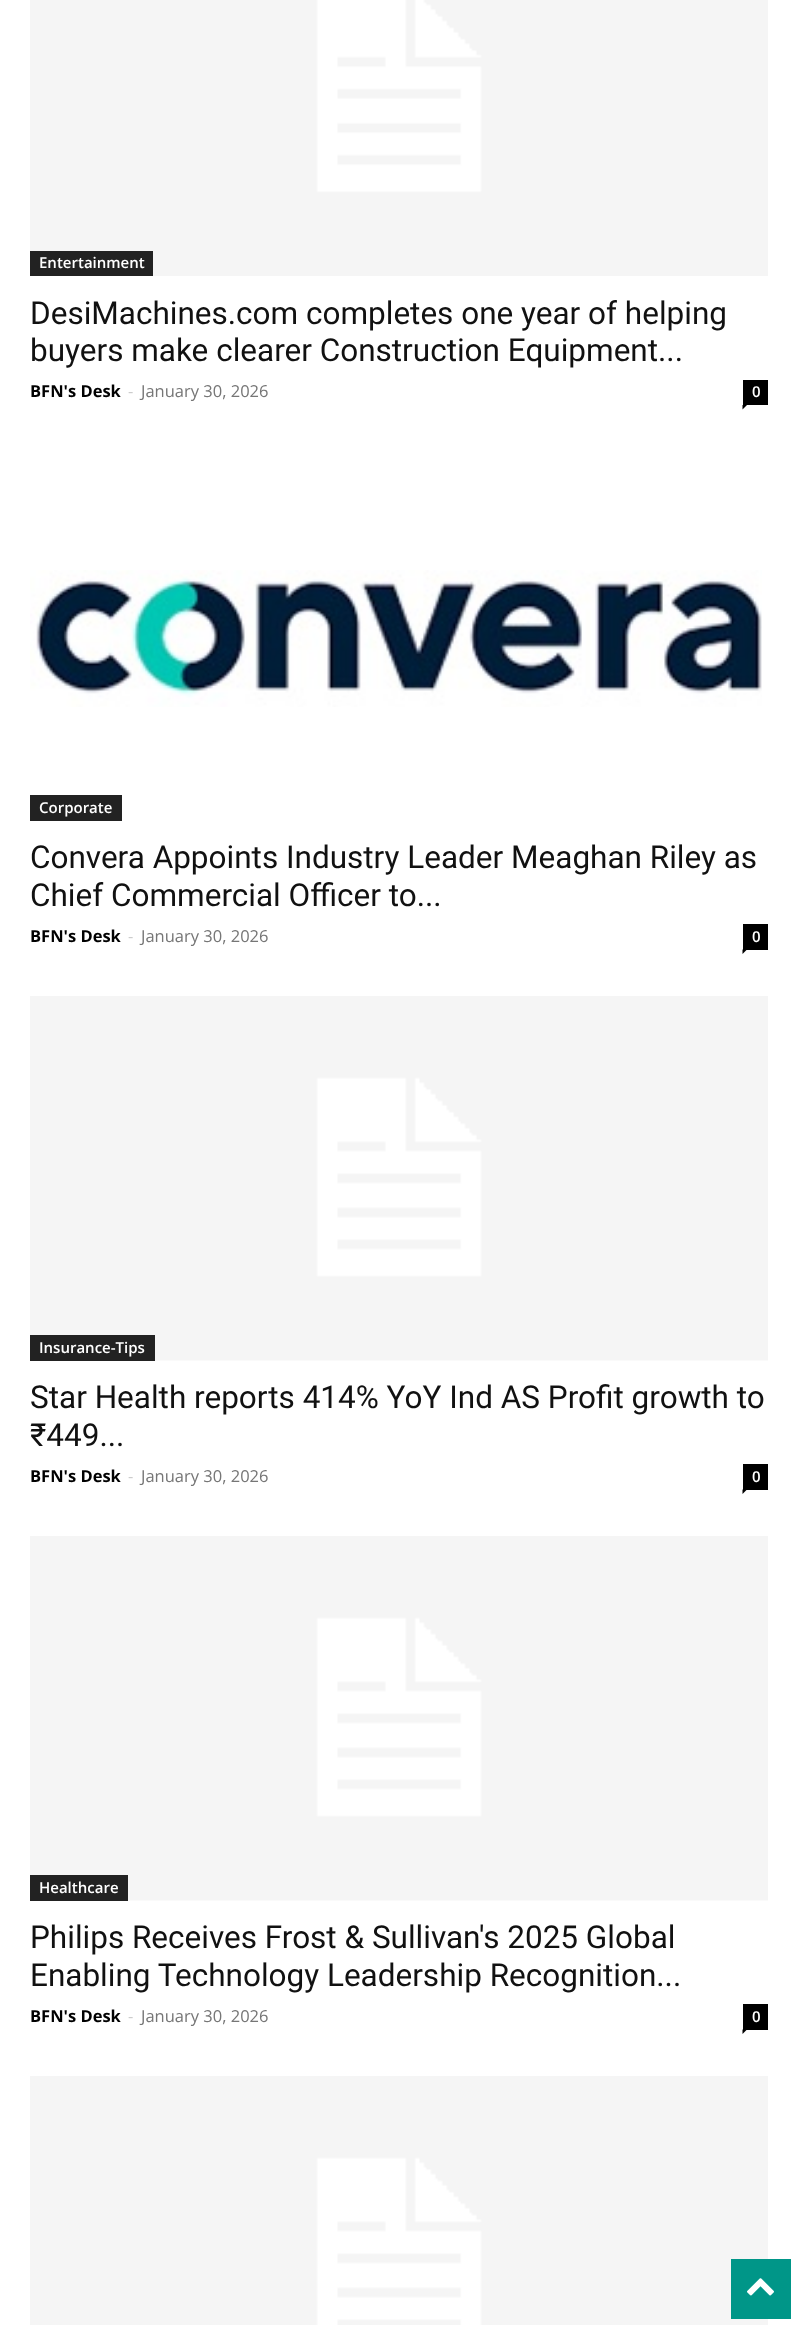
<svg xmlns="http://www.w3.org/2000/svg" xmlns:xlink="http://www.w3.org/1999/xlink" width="797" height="2325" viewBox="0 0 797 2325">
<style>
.cls-1{font:600 15px Open Sans;fill:#ffffff}
.cls-2{font:31.5px Roboto;fill:#111111}
.cls-3{font:bold 16.5px Open Sans;fill:#000000}
.cls-4{font:16.5px Open Sans;fill:#cccccc}
.cls-5{font:16.5px Open Sans;fill:#767676}
</style>
<rect width="100%" height="100%" fill="#ffffff"/>
<image xlink:href="image0.png" x="30" y="0" width="738" height="276"/>
<rect fill="#222222" x="30" y="251" width="123" height="25"/>
<rect fill="#000000" x="743" y="380" width="25" height="25"/>
<path fill="#000000" d="M742.5 405H747L742.5 409.5Z"/>
<image xlink:href="image1.png" x="30" y="570" width="732" height="137"/>
<rect fill="#222222" x="30" y="795" width="92" height="26"/>
<rect fill="#000000" x="743" y="924" width="25" height="26"/>
<path fill="#000000" d="M742.5 949.5H747L742.5 954Z"/>
<image xlink:href="image2.png" x="30" y="996" width="738" height="365"/>
<rect fill="#222222" x="30" y="1335" width="125" height="26"/>
<rect fill="#000000" x="743" y="1464" width="25" height="26"/>
<path fill="#000000" d="M742.5 1489.5H747L742.5 1494Z"/>
<image xlink:href="image2.png" x="30" y="1536" width="738" height="365"/>
<rect fill="#222222" x="30" y="1875" width="98" height="26"/>
<rect fill="#000000" x="743" y="2004" width="25" height="26"/>
<path fill="#000000" d="M742.5 2029.5H747L742.5 2034Z"/>
<image xlink:href="image3.png" x="30" y="2076" width="738" height="249"/>
<rect fill="#009688" x="731" y="2259" width="60" height="60"/>
<image xlink:href="image4.png" x="747" y="2278" width="27" height="18"/>
<text class="cls-1" x="39" y="268">Entertainment</text>
<text class="cls-2"><tspan x="30" y="324">DesiMachines.com completes one year of helping</tspan><tspan x="30" y="361">buyers make clearer Construction Equipment...</tspan></text>
<text class="cls-3" x="30" y="397">BFN's Desk</text>
<text class="cls-4" x="128" y="397">-</text>
<text class="cls-5" x="141" y="397">January 30, 2026</text>
<text class="cls-1" x="752" y="397">0</text>
<text class="cls-1" x="39" y="813">Corporate</text>
<text class="cls-2"><tspan x="30" y="868">Convera Appoints Industry Leader Meaghan Riley as</tspan><tspan x="30" y="906">Chief Commercial Officer to...</tspan></text>
<text class="cls-3" x="30" y="942">BFN's Desk</text>
<text class="cls-4" x="128" y="942">-</text>
<text class="cls-5" x="141" y="942">January 30, 2026</text>
<text class="cls-1" x="752" y="942">0</text>
<text class="cls-1" x="39" y="1353">Insurance-Tips</text>
<text class="cls-2"><tspan x="30" y="1408">Star Health reports 414% YoY Ind AS Profit growth to</tspan><tspan x="30" y="1446">₹449...</tspan></text>
<text class="cls-3" x="30" y="1482">BFN's Desk</text>
<text class="cls-4" x="128" y="1482">-</text>
<text class="cls-5" x="141" y="1482">January 30, 2026</text>
<text class="cls-1" x="752" y="1482">0</text>
<text class="cls-1" x="39" y="1893">Healthcare</text>
<text class="cls-2"><tspan x="30" y="1948">Philips Receives Frost &amp; Sullivan's 2025 Global</tspan><tspan x="30" y="1986">Enabling Technology Leadership Recognition...</tspan></text>
<text class="cls-3" x="30" y="2022">BFN's Desk</text>
<text class="cls-4" x="128" y="2022">-</text>
<text class="cls-5" x="141" y="2022">January 30, 2026</text>
<text class="cls-1" x="752" y="2022">0</text>
</svg>
